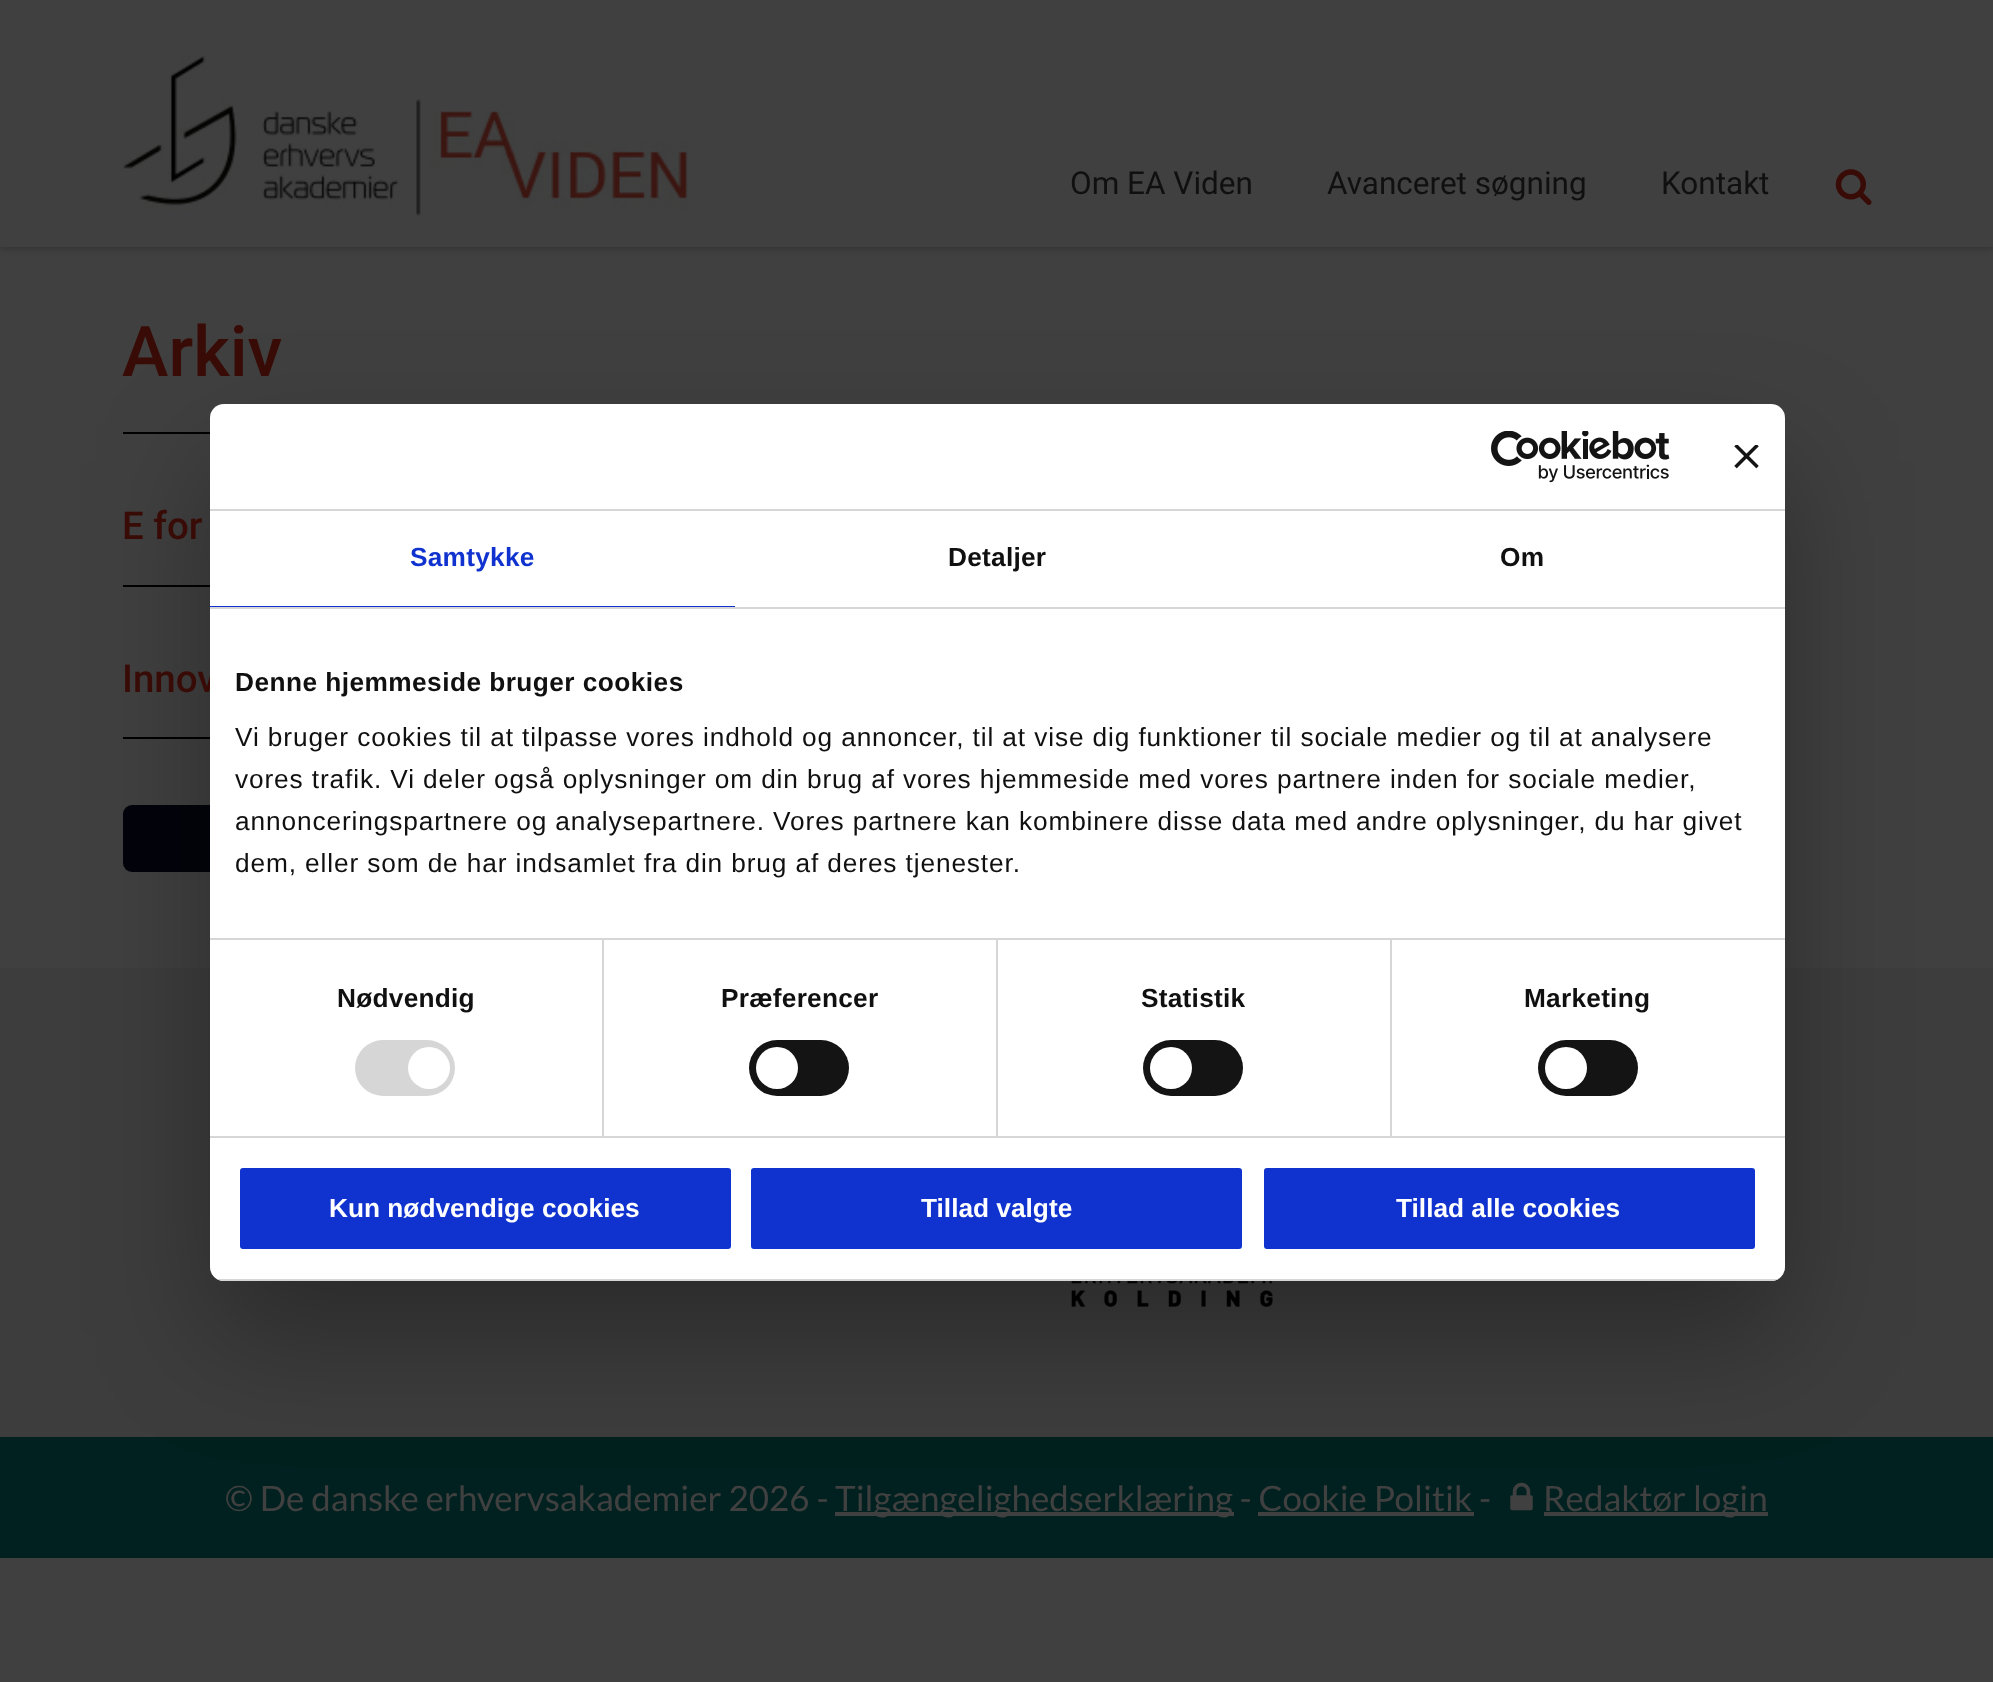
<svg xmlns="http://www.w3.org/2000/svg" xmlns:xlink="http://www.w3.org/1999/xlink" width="1993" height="1682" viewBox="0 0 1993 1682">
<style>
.cls-1{font:31.5px Roboto;fill:#101011}
.cls-2{font:500 70px Roboto;fill:#380b06}
.cls-3{font:500 38.5px Roboto;fill:#380b06}
.cls-4{font:35px Lato;fill:#404040}
.cls-5{font:bold 26.25px Liberation Sans;letter-spacing:0.25px;fill:#1032cf}
.cls-6{font:bold 26.25px Liberation Sans;letter-spacing:0.25px;fill:#101011}
.cls-7{font:bold 26.25px Liberation Sans;letter-spacing:0.45px;fill:#101011}
.cls-8{font:26.25px Liberation Sans;letter-spacing:0.88px;fill:#101011}
.cls-9{font:bold 26.25px Liberation Sans;fill:#ffffff}
</style>
<defs>
<clipPath id="clip1"><rect x="210" y="404" width="1575" height="877" rx="14"/></clipPath>
</defs>
<rect width="100%" height="100%" fill="#404040"/>
<rect fill="#000000" fill-opacity="0.2" filter="blur(3.5px)" x="0" y="2" width="1993" height="247"/>
<rect fill="#404040" x="0" y="0" width="1993" height="247"/>
<image xlink:href="image0.png" x="123" y="56" width="565" height="160"/>
<image xlink:href="image1.png" x="1835" y="169" width="37" height="36"/>
<rect fill="#000000" x="123" y="432" width="87" height="2"/>
<rect fill="#000000" x="123" y="585" width="87" height="2"/>
<rect fill="#000000" x="123" y="737" width="87" height="2"/>
<rect fill="#03030b" x="123" y="805" width="449" height="67" rx="9"/>
<rect fill="#3d3d3d" x="0" y="968" width="1993" height="469"/>
<image xlink:href="image2.png" x="1071" y="1281" width="202" height="26"/>
<rect fill="#00211f" x="0" y="1437" width="1993" height="121"/>
<rect fill="#404040" x="835" y="1512" width="399" height="4"/>
<image xlink:href="image3.png" x="1510" y="1482" width="23" height="29"/>
<rect fill="#404040" x="1544" y="1512" width="224" height="4"/>
<rect fill="#404040" x="1258" y="1512" width="216" height="4"/>
<rect fill="#000000" fill-opacity="0.3" filter="blur(59.5px)" x="210" y="460" width="1575" height="877" rx="14"/>
<text class="cls-1" x="1070" y="194">Om EA Viden</text>
<text class="cls-1" x="1327" y="194">Avanceret søgning</text>
<text class="cls-1" x="1661" y="194">Kontakt</text>
<text class="cls-2" x="122" y="376">Arkiv</text>
<text class="cls-3" x="122" y="539">E for</text>
<text class="cls-3" x="122" y="692">Innov</text>
<text class="cls-4" x="225" y="1511">© De danske erhvervsakademier 2026 -</text>
<text class="cls-4" x="835" y="1511">Tilgængelighedserklæring - Cookie Politik -</text>
<text class="cls-4" x="1543" y="1511">Redaktør login</text>
<rect fill="#ffffff" x="210" y="404" width="1575" height="877" rx="14"/>
<rect fill="#d6d6d6" x="210" y="509" width="1575" height="2"/>
<image xlink:href="image4.png" x="1491" y="431" width="179" height="52"/>
<image xlink:href="image5.png" x="1734" y="445" width="25" height="24"/>
<rect fill="#d6d6d6" x="210" y="607" width="1575" height="2"/>
<rect fill="#1032cf" x="210" y="606" width="525" height="1"/>
<text class="cls-5" x="410" y="566">Samtykke</text>
<text class="cls-6" x="948" y="566">Detaljer</text>
<text class="cls-6" x="1500" y="566">Om</text>
<rect fill="#d6d6d6" x="210" y="938" width="1575" height="2"/>
<text class="cls-7" x="235" y="691">Denne hjemmeside bruger cookies</text>
<text class="cls-8"><tspan x="235" y="746">Vi bruger cookies til at tilpasse vores indhold og annoncer, til at vise dig funktioner til sociale medier og til at analysere</tspan><tspan x="235" y="788">vores trafik. Vi deler også oplysninger om din brug af vores hjemmeside med vores partnere inden for sociale medier,</tspan><tspan x="235" y="830">annonceringspartnere og analysepartnere. Vores partnere kan kombinere disse data med andre oplysninger, du har givet</tspan><tspan x="235" y="872">dem, eller som de har indsamlet fra din brug af deres tjenester.</tspan></text>
<rect fill="#d6d6d6" x="210" y="1136" width="1575" height="2"/>
<rect fill="#d6d6d6" x="602" y="940" width="2" height="196"/>
<text class="cls-6" x="337" y="1007">Nødvendig</text>
<rect fill="#d6d6d6" x="355" y="1040" width="100" height="56" rx="28"/>
<circle fill="#ffffff" cx="429" cy="1068" r="21"/>
<rect fill="#d6d6d6" x="996" y="940" width="2" height="196"/>
<text class="cls-6" x="721" y="1007">Præferencer</text>
<rect fill="#141414" x="749" y="1040" width="100" height="56" rx="28"/>
<circle fill="#ffffff" cx="777" cy="1068" r="21"/>
<rect fill="#d6d6d6" x="1390" y="940" width="2" height="196"/>
<text class="cls-6" x="1141" y="1007">Statistik</text>
<rect fill="#141414" x="1143" y="1040" width="100" height="56" rx="28"/>
<circle fill="#ffffff" cx="1171" cy="1068" r="21"/>
<text class="cls-6" x="1524" y="1007">Marketing</text>
<rect fill="#141414" x="1538" y="1040" width="100" height="56" rx="28"/>
<circle fill="#ffffff" cx="1566" cy="1068" r="21"/>
<g clip-path="url(#clip1)">
<rect fill="#d6d6d6" x="210" y="1279" width="1575" height="2"/>
</g>
<rect fill="#1032cf" stroke="#ffffff" stroke-width="4" x="238" y="1166" width="495" height="85" rx="5"/>
<text class="cls-9" x="329" y="1217">Kun nødvendige cookies</text>
<rect fill="#1032cf" stroke="#ffffff" stroke-width="4" x="749" y="1166" width="495" height="85" rx="5"/>
<text class="cls-9" x="921" y="1217">Tillad valgte</text>
<rect fill="#1032cf" stroke="#ffffff" stroke-width="4" x="1262" y="1166" width="495" height="85" rx="5"/>
<text class="cls-9" x="1396" y="1217">Tillad alle cookies</text>
</svg>
